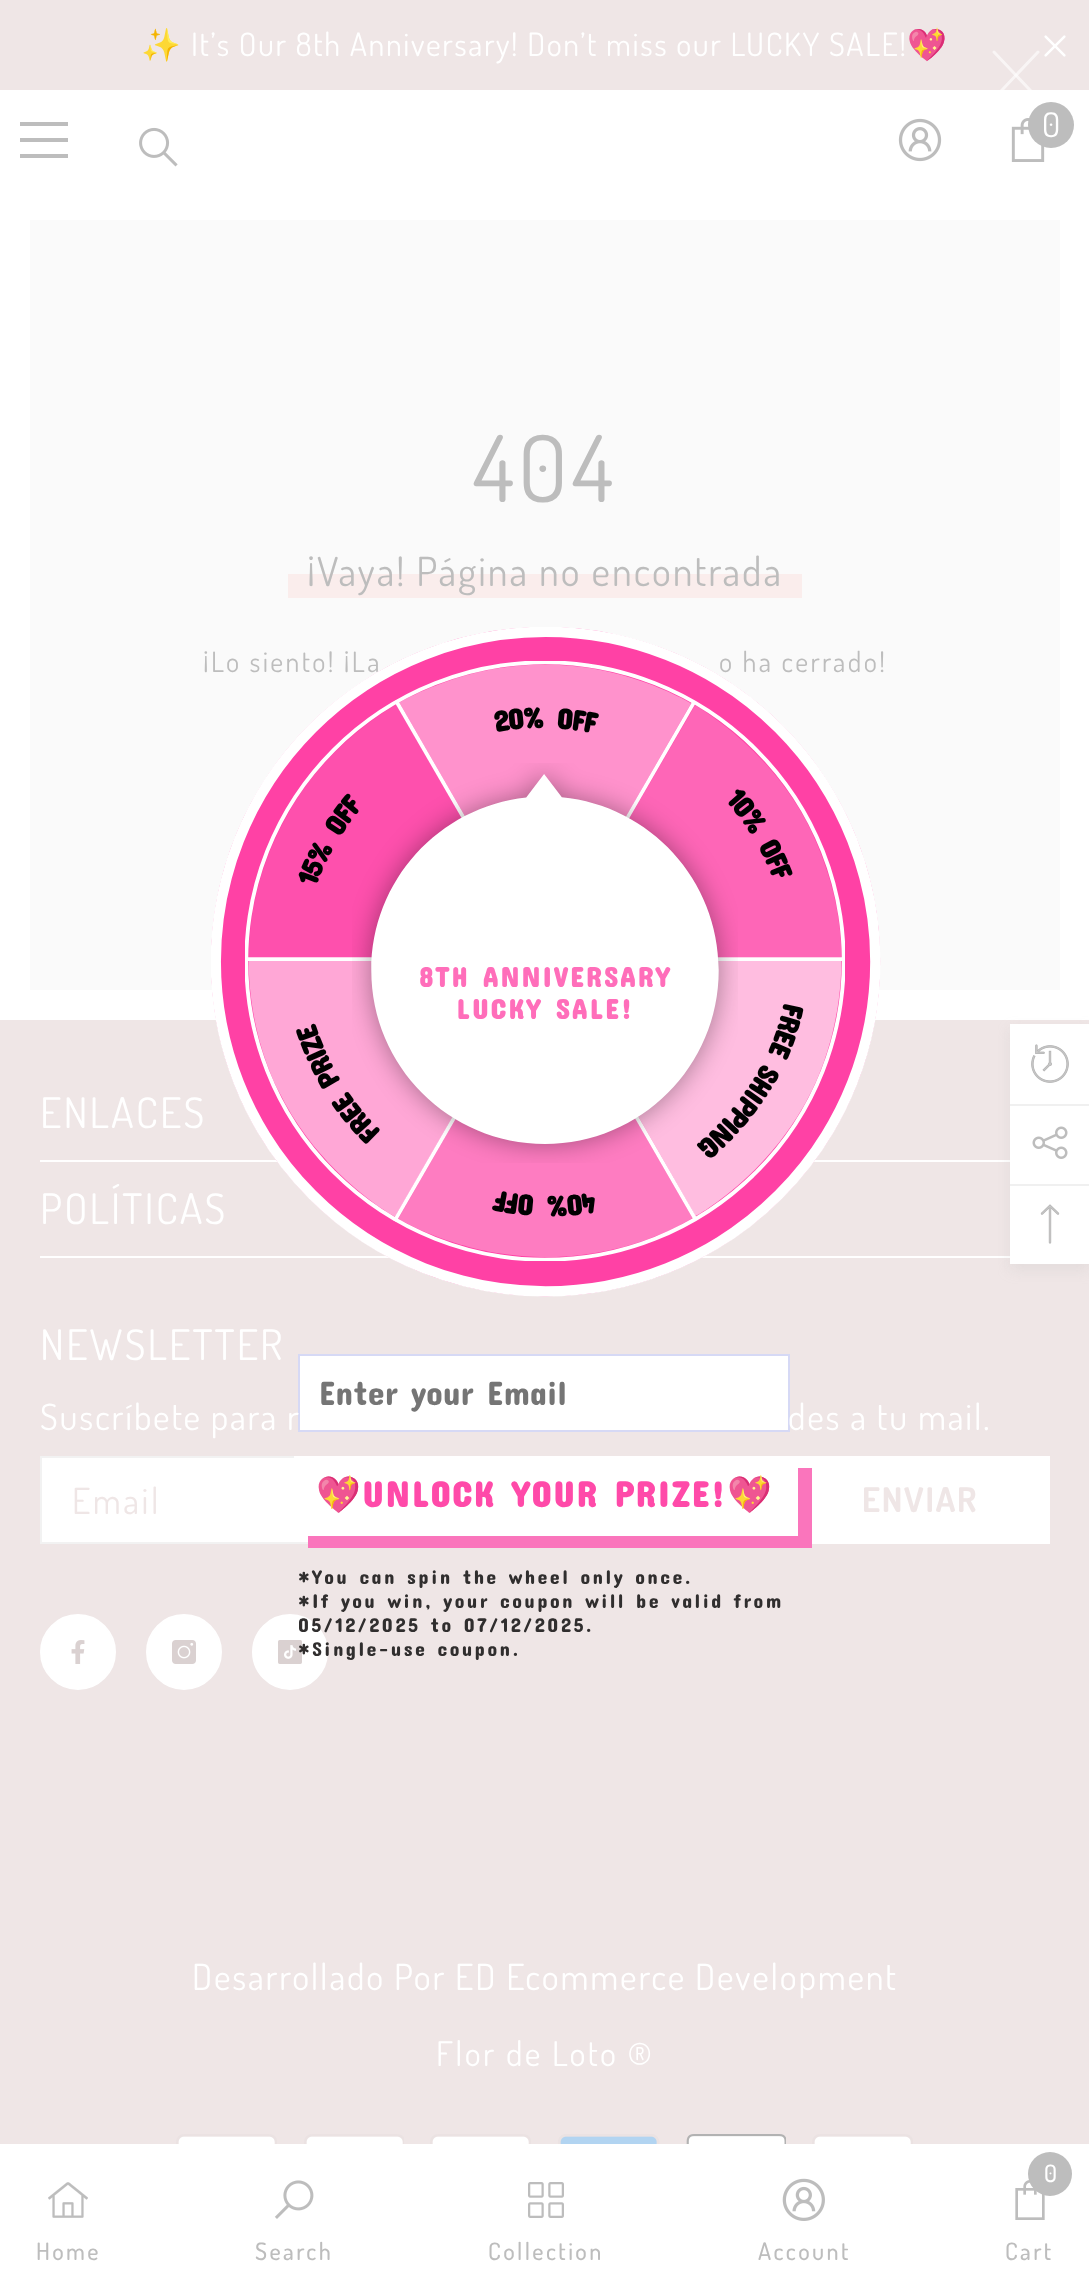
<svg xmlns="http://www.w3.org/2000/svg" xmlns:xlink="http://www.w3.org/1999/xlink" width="1089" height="2285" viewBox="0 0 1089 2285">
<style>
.cls-1{font:32px Noto Color Emoji;letter-spacing:1.6px;fill:#ffffff}
.cls-2{font:32px Dosis;letter-spacing:1.6px;fill:#ffffff}
.cls-3{font:34px Dosis;fill:#ffffff}
.cls-4{font:92px Dosis;letter-spacing:4.5px;fill:#bdbdbd}
.cls-5{font:40px Dosis;letter-spacing:2px;fill:#bdbdbd}
.cls-6{font:28px Dosis;letter-spacing:2.4px;fill:#bdbdbd}
.cls-7{font:42px Dosis;letter-spacing:2.1px;fill:#ffffff}
.cls-8{font:36px Dosis;letter-spacing:1.8px;fill:#ffffff}
.cls-9{font:36px Dosis;letter-spacing:2.5px;fill:#efe6e6}
.cls-10{font:bold 34px Dosis;letter-spacing:1.75px;fill:#efe6e6}
.cls-11{font:34px Dosis;letter-spacing:2.4px;fill:#ffffff}
.cls-12{font:500 24px Dosis;letter-spacing:2.4px;fill:#bdbdbd}
.cls-13{font:500 24px Dosis;fill:#ffffff}
.cls-14{font:bold 28px Concert One;letter-spacing:2.4px;fill:#ff6eba}
.cls-15{font:34px Concert One;fill:#757575}
.cls-16{font:bold 36px Noto Color Emoji;letter-spacing:2px;fill:#ff4aa9}
.cls-17{font:bold 36px Concert One;letter-spacing:2px;fill:#ff4aa9}
.cls-18{font:20px Concert One;letter-spacing:2.4px;fill:#302e2e}
</style>
<rect width="100%" height="100%" fill="#ffffff"/>
<rect fill="#efe6e6" x="0" y="0" width="1089" height="90"/>
<image xlink:href="image0.png" x="1044" y="35" width="22" height="22"/>
<rect fill="#bdbdbd" x="20" y="138" width="48" height="4"/>
<rect fill="#bdbdbd" x="20" y="122" width="48" height="4"/>
<rect fill="#bdbdbd" x="20" y="154" width="48" height="4"/>
<image xlink:href="image1.png" x="139" y="127" width="39" height="40"/>
<image xlink:href="image2.png" x="898" y="118" width="44" height="44"/>
<image xlink:href="image3.png" x="1011" y="118" width="34" height="44"/>
<circle fill="#bdbdbd" cx="1051" cy="125" r="23"/>
<rect fill="#fafafa" x="30" y="220" width="1030" height="770"/>
<rect fill="#faedec" x="288" y="574" width="514" height="24"/>
<rect fill="#efe6e6" x="0" y="1020" width="1089" height="1124"/>
<rect fill="#ffffff" x="40" y="1160" width="970" height="2"/>
<rect fill="#ffffff" x="40" y="1256" width="970" height="2"/>
<rect fill="#ffffff" x="42" y="1458" width="266" height="84"/>
<rect fill="none" stroke="#f2f2f2" stroke-width="2" x="41" y="1457" width="728" height="86"/>
<rect fill="#ffffff" x="798" y="1456" width="252" height="88"/>
<circle fill="#ffffff" stroke="#ffffff" stroke-width="2" cx="78" cy="1652" r="37"/>
<image xlink:href="image4.png" x="71" y="1640" width="14" height="24"/>
<circle fill="#ffffff" stroke="#ffffff" stroke-width="2" cx="184" cy="1652" r="37"/>
<image xlink:href="image5.png" x="172" y="1640" width="24" height="24"/>
<circle fill="#ffffff" stroke="#ffffff" stroke-width="2" cx="290" cy="1652" r="37"/>
<image xlink:href="image6.png" x="278" y="1640" width="24" height="24"/>
<image xlink:href="image7.png" x="176" y="2134" width="101" height="10"/>
<image xlink:href="image8.png" x="304" y="2134" width="100" height="10"/>
<image xlink:href="image7.png" x="430" y="2134" width="101" height="10"/>
<image xlink:href="image9.png" x="558" y="2134" width="102" height="10"/>
<image xlink:href="image10.png" x="686" y="2134" width="100" height="10"/>
<image xlink:href="image7.png" x="812" y="2134" width="101" height="10"/>
<image xlink:href="image11.png" x="48" y="2182" width="40" height="36"/>
<image xlink:href="image12.png" x="274" y="2180" width="40" height="39"/>
<image xlink:href="image13.png" x="528" y="2182" width="36" height="36"/>
<image xlink:href="image14.png" x="782" y="2178" width="43" height="43"/>
<image xlink:href="image15.png" x="1015" y="2180" width="30" height="40"/>
<circle fill="#bdbdbd" cx="1050" cy="2174" r="22"/>
<path fill="none" stroke="#ffffff" stroke-opacity="0.6" stroke-width="3" stroke-linecap="round" d="M1038 52L994.5 98"/>
<path fill="none" stroke="#ffffff" stroke-opacity="0.6" stroke-width="3" stroke-linecap="round" d="M994 52L1037.5 98"/>
<rect fill="#ffffff" stroke="#d6d9f5" stroke-width="2" x="299" y="1355" width="490" height="76"/>
<path fill="#fa75bc" d="M308 1535V1548H812V1468H797V1535Z"/>
<rect fill="#ffffff" x="294" y="1456" width="504" height="80"/>
<rect fill="#b3b3b3" fill-opacity="0.2" filter="blur(7px)" x="1010" y="1030" width="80" height="240"/>
<rect fill="#ffffff" x="1010" y="1024" width="79" height="240"/>
<image xlink:href="image19.png" x="1031" y="1044" width="38" height="39"/>
<rect fill="#f0f0f0" x="1010" y="1104" width="79" height="2"/>
<image xlink:href="image20.png" x="1032" y="1126" width="36" height="33"/>
<rect fill="#f0f0f0" x="1010" y="1184" width="79" height="2"/>
<image xlink:href="image21.png" x="1040" y="1204" width="20" height="40"/>
<text class="cls-1" x="141" y="56">✨</text>
<text class="cls-2" x="191" y="56">It’s Our 8th Anniversary! Don’t miss our LUCKY SALE!</text>
<text class="cls-1" x="907" y="56">💖</text>
<text class="cls-3" x="1042" y="137">0</text>
<text class="cls-4" x="473" y="502">404</text>
<text class="cls-5" x="307" y="586">¡Vaya! Página no encontrada</text>
<text class="cls-6" x="203" y="672">¡Lo siento! ¡La</text>
<text class="cls-6" x="719" y="672">o ha cerrado!</text>
<text class="cls-7" x="40" y="1128">ENLACES</text>
<text class="cls-7" x="40" y="1224">POLÍTICAS</text>
<text class="cls-7" x="40" y="1360">NEWSLETTER</text>
<text class="cls-8" x="40" y="1430">Suscríbete para r</text>
<text class="cls-8" x="788" y="1430">des a tu mail.</text>
<text class="cls-9" x="72" y="1514">Email</text>
<text class="cls-10" x="862" y="1512">ENVIAR</text>
<text class="cls-8" x="192" y="1990">Desarrollado Por ED Ecommerce Development</text>
<text class="cls-11" x="436" y="2066">Flor de Loto ®</text>
<text class="cls-12" x="36" y="2260">Home</text>
<text class="cls-12" x="255" y="2260">Search</text>
<text class="cls-12" x="488" y="2260">Collection</text>
<text class="cls-12" x="758" y="2260">Account</text>
<text class="cls-13" x="1044" y="2182">0</text>
<text class="cls-12" x="1005" y="2260">Cart</text>
<image xlink:href="image16.png" x="211" y="627" width="670" height="670"/>
<image xlink:href="image17.png" x="245" y="661" width="600" height="600"/>
<image xlink:href="image18.png" x="352" y="763" width="386" height="400"/>
<text class="cls-14" x="419" y="987">8TH ANNIVERSARY</text>
<text class="cls-14" x="456" y="1019">LUCKY SALE!</text>
<text class="cls-15" x="319" y="1405">Enter your Email</text>
<text class="cls-16" x="316" y="1507">💖</text>
<text class="cls-17" x="362" y="1507">UNLOCK YOUR PRIZE!</text>
<text class="cls-16" x="727" y="1507">💖</text>
<text class="cls-18"><tspan x="298" y="1584">*You can spin the wheel only once.</tspan><tspan x="298" y="1608">*If you win, your coupon will be valid from</tspan><tspan x="298" y="1632">05/12/2025 to 07/12/2025.</tspan><tspan x="298" y="1656">*Single-use coupon.</tspan></text>
</svg>
